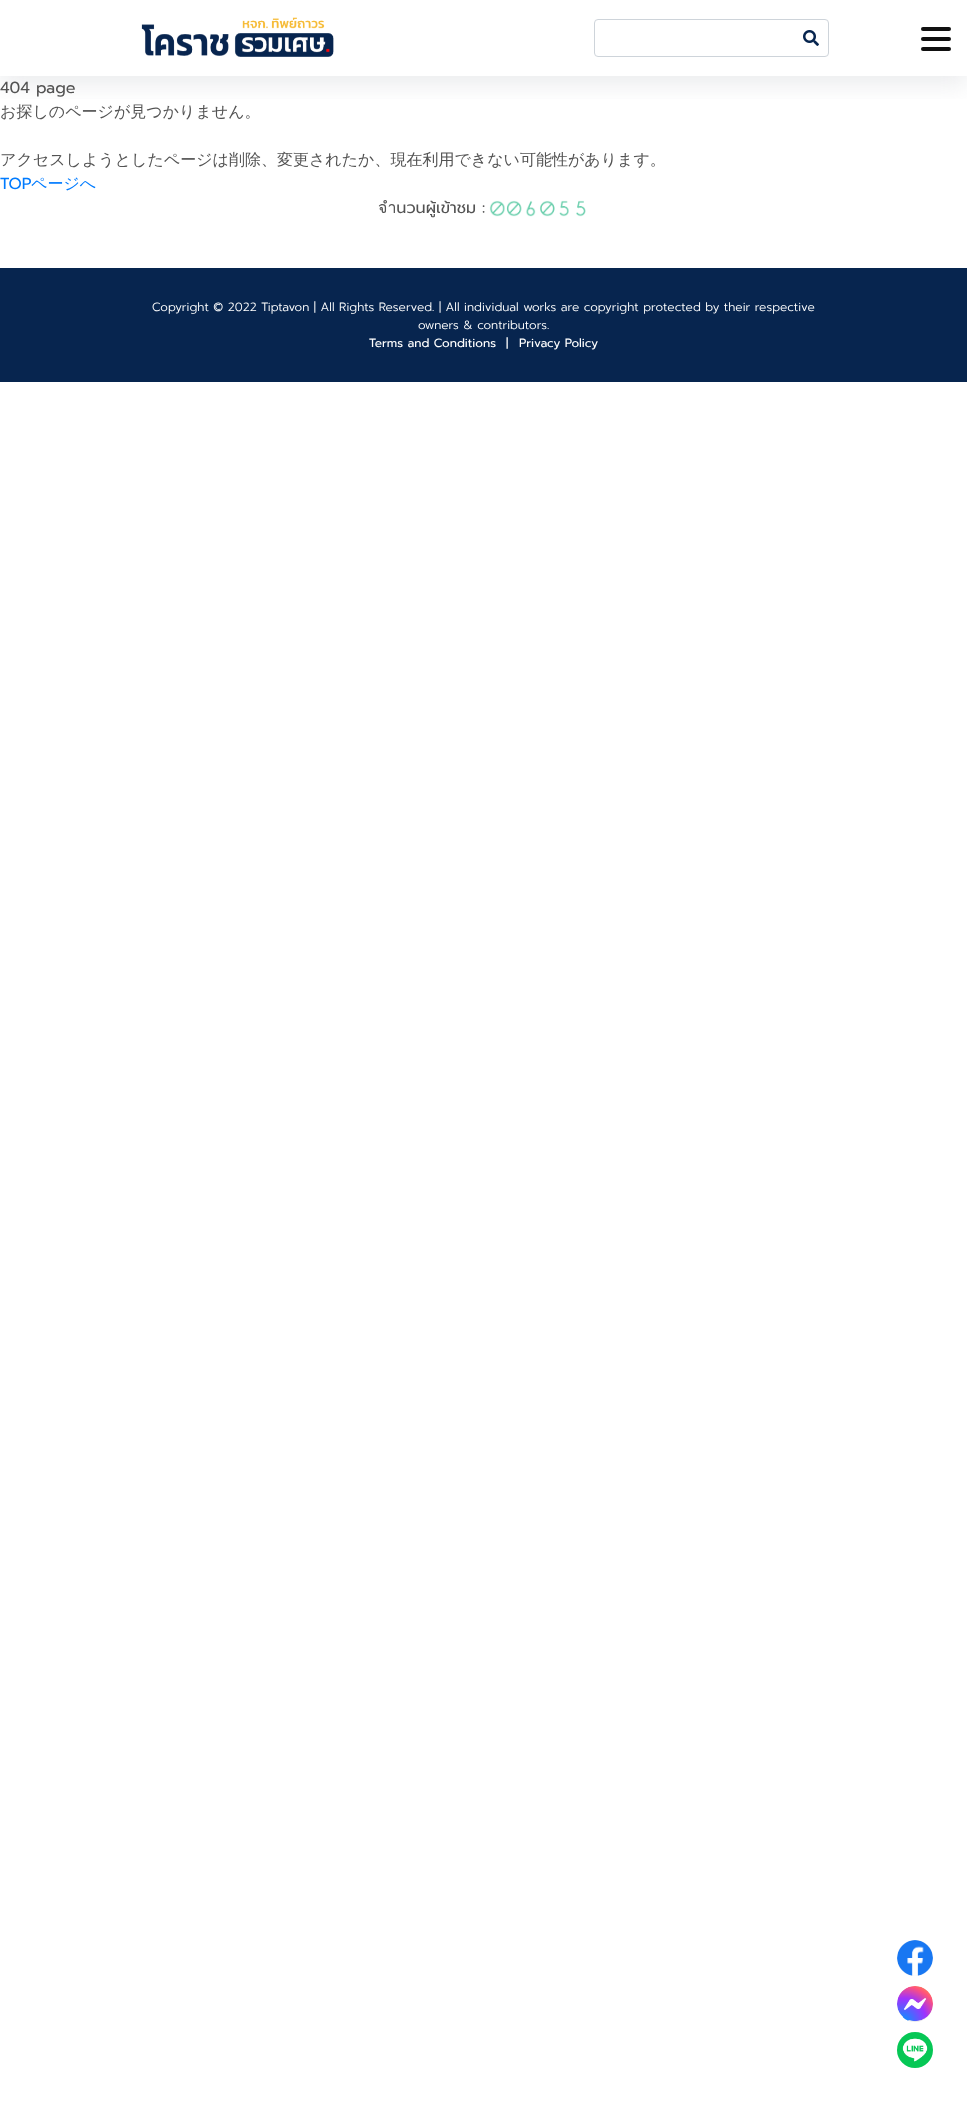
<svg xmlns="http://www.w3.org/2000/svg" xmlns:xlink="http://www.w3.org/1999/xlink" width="967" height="2108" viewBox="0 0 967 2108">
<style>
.cls-1{font:16px Prompt;fill:#535353}
.cls-2{font:500 16px WenQuanYi Zen Hei;fill:#535353}
.cls-3{font:16px Prompt;fill:#007bff}
.cls-4{font:500 16px WenQuanYi Zen Hei;fill:#007bff}
.cls-5{font:300 12px Prompt;fill:#ffffff}
.cls-6{font:12px Prompt;fill:#ffffff}
</style>
<defs>
<clipPath id="clip1"><rect x="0" y="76" width="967" height="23"/></clipPath>
</defs>
<rect width="100%" height="100%" fill="#ffffff"/>
<g clip-path="url(#clip1)">
<rect fill="#959da5" fill-opacity="0.2" filter="blur(12px)" x="0" y="8" width="967" height="76"/>
</g>
<image xlink:href="image0.png" x="141" y="17" width="193" height="40"/>
<rect fill="none" stroke="#ced4da" x="594.5" y="19.5" width="234" height="37" rx="3.5"/>
<image xlink:href="image1.png" x="803" y="30" width="16" height="16"/>
<rect fill="#111111" x="921" y="27" width="30" height="4" rx="2"/>
<rect fill="#111111" x="921" y="37" width="30" height="4" rx="2"/>
<rect fill="#111111" x="921" y="47" width="30" height="4" rx="2"/>
<image xlink:href="image2.png" x="489" y="200" width="97" height="17"/>
<rect fill="#07254f" x="0" y="268" width="967" height="114"/>
<circle fill="#eeeeee" stroke="#ffffff" stroke-width="2" cx="915" cy="1958" r="19"/>
<image xlink:href="image3.png" x="897" y="1940" width="36" height="36"/>
<circle fill="#eeeeee" stroke="#ffffff" stroke-width="2" cx="915" cy="2004" r="19"/>
<image xlink:href="image4.png" x="897" y="1986" width="36" height="36"/>
<image xlink:href="image5.png" x="897" y="2032" width="36" height="36"/>
<text class="cls-1" x="0" y="93">404 page</text>
<text class="cls-2" x="0" y="117">お探しのページが見つかりません。</text>
<text class="cls-2" x="0" y="165">アクセスしようとしたページは削除、変更されたか、現在利用できない可能性があります。</text>
<text class="cls-3" x="0" y="189">TOP</text>
<text class="cls-4" x="31" y="189">ページへ</text>
<text class="cls-1" x="378" y="213">จำนวนผู้เข้าชม :</text>
<text class="cls-5" x="152" y="311">Copyright © 2022 Tiptavon | All Rights Reserved. | All individual works are copyright protected by their respective</text>
<text class="cls-5" x="418" y="329">owners &amp; contributors.</text>
<text class="cls-6" x="369" y="347">Terms and Conditions</text>
<text class="cls-6" x="506" y="347">|</text>
<text class="cls-6" x="519" y="347">Privacy Policy</text>
</svg>
